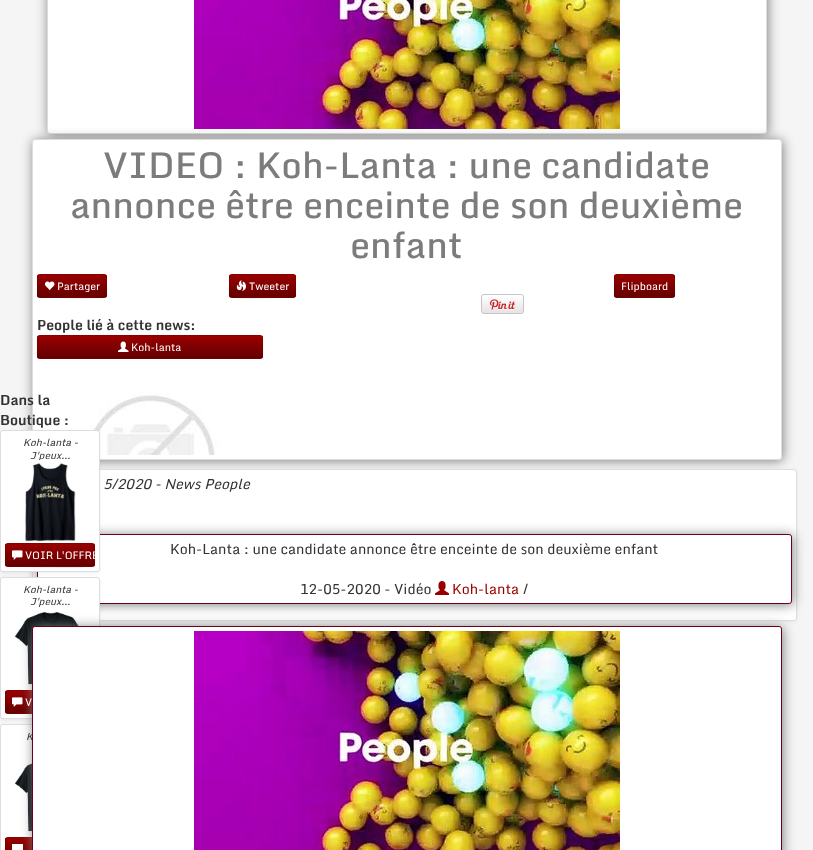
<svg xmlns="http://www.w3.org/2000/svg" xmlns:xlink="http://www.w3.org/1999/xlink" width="813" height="850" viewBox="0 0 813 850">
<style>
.cls-1{font:500 36px Monda;fill:#7c7c7c}
.cls-2{font:10.5px Monda;fill:#ffffff}
.cls-3{font:bold 14px Monda;fill:#333333}
.cls-4{font:italic 10px Monda;fill:#333333}
.cls-5{font:italic 14px Monda;fill:#333333}
.cls-6{font:14px Monda;fill:#333333}
.cls-7{font:14px Monda;fill:#980000}
</style>
<defs>
<clipPath id="clip1"><rect x="37" y="274" width="70" height="24" rx="3"/></clipPath>
<linearGradient id="g1" gradientUnits="userSpaceOnUse" x1="72" y1="275" x2="72" y2="297"><stop offset="0" stop-color="#980000"/><stop offset="1" stop-color="#650000"/></linearGradient>
<clipPath id="clip2"><rect x="229" y="274" width="67" height="24" rx="3"/></clipPath>
<linearGradient id="g2" gradientUnits="userSpaceOnUse" x1="263" y1="275" x2="263" y2="297"><stop offset="0" stop-color="#980000"/><stop offset="1" stop-color="#650000"/></linearGradient>
<clipPath id="clip3"><rect x="614" y="274" width="61" height="24" rx="3"/></clipPath>
<linearGradient id="g3" gradientUnits="userSpaceOnUse" x1="645" y1="275" x2="645" y2="297"><stop offset="0" stop-color="#980000"/><stop offset="1" stop-color="#650000"/></linearGradient>
<clipPath id="clip4"><rect x="37" y="335" width="226" height="24" rx="3"/></clipPath>
<linearGradient id="g4" gradientUnits="userSpaceOnUse" x1="150" y1="336" x2="150" y2="358"><stop offset="0" stop-color="#980000"/><stop offset="1" stop-color="#650000"/></linearGradient>
<clipPath id="clip5"><rect x="5" y="543" width="90" height="24" rx="3"/></clipPath>
<linearGradient id="g5" gradientUnits="userSpaceOnUse" x1="50" y1="544" x2="50" y2="566"><stop offset="0" stop-color="#980000"/><stop offset="1" stop-color="#650000"/></linearGradient>
<clipPath id="clip6"><rect x="5" y="690" width="90" height="24" rx="3"/></clipPath>
<linearGradient id="g6" gradientUnits="userSpaceOnUse" x1="50" y1="691" x2="50" y2="713"><stop offset="0" stop-color="#980000"/><stop offset="1" stop-color="#650000"/></linearGradient>
<linearGradient id="g7" gradientUnits="userSpaceOnUse" x1="50" y1="838" x2="50" y2="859"><stop offset="0" stop-color="#980000"/><stop offset="1" stop-color="#650000"/></linearGradient>
</defs>
<rect width="100%" height="100%" fill="#f5f5f5"/>
<rect fill="#808080" filter="blur(6px)" x="48" y="-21" width="720" height="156" rx="3"/>
<rect fill="#ffffff" stroke="#dddddd" x="47.5" y="-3.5" width="719" height="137" rx="2.5"/>
<image xlink:href="image0.png" x="194" y="0" width="426" height="129"/>
<rect fill="#808080" filter="blur(6px)" x="33" y="140" width="750" height="321" rx="3"/>
<rect fill="#ffffff" stroke="#dddddd" x="32.5" y="139.5" width="749" height="320" rx="2.5"/>
<rect fill="#980000" x="37" y="274" width="70" height="24" rx="3"/>
<g clip-path="url(#clip1)">
<rect fill="url(#g1)" x="37" y="275" width="70" height="22"/>
</g>
<path fill="none" stroke="#000000" stroke-opacity="0.25" d="M106 297H105.5C103.5 298.5 57 297.5 50.5 297.5H40L38 297"/>
<path fill="none" stroke="#000000" stroke-opacity="0.1" d="M38 297C36.5 295 37.5 291 37.5 289C37.5 272.5 34 274.5 50.5 274.5H93.5C108.5 274.5 106.5 272 106.5 286C106.5 288 107.5 295 106 297"/>
<image xlink:href="image1.png" x="44" y="281" width="11" height="10"/>
<rect fill="#980000" x="229" y="274" width="67" height="24" rx="3"/>
<g clip-path="url(#clip2)">
<rect fill="url(#g2)" x="229" y="275" width="67" height="22"/>
</g>
<path fill="none" stroke="#000000" stroke-opacity="0.25" d="M295 297L293 297.5H283C277 297.5 232.5 298.5 230.5 297H230"/>
<path fill="none" stroke="#000000" stroke-opacity="0.1" d="M230 297C228.5 295 229.5 288 229.5 286C229.5 272.5 227.5 274.5 242 274.5H283C299 274.5 295.5 272.5 295.5 289C295.5 291 296.5 295 295 297"/>
<image xlink:href="image2.png" x="236" y="280" width="10" height="11"/>
<rect fill="#980000" x="614" y="274" width="61" height="24" rx="3"/>
<g clip-path="url(#clip3)">
<rect fill="url(#g3)" x="614" y="275" width="61" height="22"/>
</g>
<path fill="none" stroke="#000000" stroke-opacity="0.25" d="M674 297L672 297.5H617L615 297"/>
<path fill="none" stroke="#000000" stroke-opacity="0.1" d="M615 297C613.5 295 614.5 288 614.5 286C614.5 272.5 612.5 274.5 626 274.5H663C676.5 274.5 674.5 272.5 674.5 286C674.5 288 675.5 295 674 297"/>
<image xlink:href="image3.png" x="481" y="294" width="43" height="20"/>
<rect fill="#980000" x="37" y="335" width="226" height="24" rx="3"/>
<g clip-path="url(#clip4)">
<rect fill="url(#g4)" x="37" y="336" width="226" height="22"/>
</g>
<path fill="none" stroke="#000000" stroke-opacity="0.25" d="M262 358L260 358.5H40L38 358"/>
<path fill="none" stroke="#000000" stroke-opacity="0.1" d="M38 358C37 356.5 37 339.5 37.5 337.5C38 336.5 39 335.5 40 335.5H260C261 335.5 262 336.5 262.5 337.5C263 339.5 263 356.5 262 358"/>
<image xlink:href="image4.png" x="118" y="341" width="11" height="11"/>
<image xlink:href="image5.png" x="84" y="391" width="135" height="64"/>
<rect fill="#000000" fill-opacity="0.06" filter="blur(1.5px)" x="32" y="470" width="765" height="152" rx="3"/>
<rect fill="#ffffff" stroke="#dddddd" x="32.5" y="469.5" width="764" height="151" rx="2.5"/>
<rect fill="#808080" filter="blur(6px)" x="38" y="535" width="755" height="70" rx="3"/>
<rect fill="#ffffff" stroke="#6d0019" x="37.5" y="534.5" width="754" height="69" rx="2.5"/>
<rect fill="#000000" fill-opacity="0.06" filter="blur(1.5px)" x="0" y="431" width="100" height="142" rx="3"/>
<rect fill="#ffffff" stroke="#dddddd" x="0.5" y="430.5" width="99" height="141" rx="2.5"/>
<rect fill="#980000" x="5" y="543" width="90" height="24" rx="3"/>
<g clip-path="url(#clip5)">
<rect fill="url(#g5)" x="5" y="544" width="90" height="22"/>
</g>
<path fill="none" stroke="#000000" stroke-opacity="0.25" d="M94 566H93.5C91.5 567.5 29.5 566.5 22 566.5H8L6 566"/>
<path fill="none" stroke="#000000" stroke-opacity="0.1" d="M6 566C4.5 564 5.5 557 5.5 555C5.5 540 4 543.5 22 543.5H78C96 543.5 94.5 540 94.5 555C94.5 557 95.5 564 94 566"/>
<image xlink:href="image7.png" x="12" y="550" width="11" height="10"/>
<rect fill="#000000" fill-opacity="0.06" filter="blur(1.5px)" x="0" y="578" width="100" height="142" rx="3"/>
<rect fill="#ffffff" stroke="#dddddd" x="0.5" y="577.5" width="99" height="141" rx="2.5"/>
<rect fill="#980000" x="5" y="690" width="90" height="24" rx="3"/>
<g clip-path="url(#clip6)">
<rect fill="url(#g6)" x="5" y="691" width="27" height="22"/>
</g>
<path fill="none" stroke="#000000" stroke-opacity="0.25" d="M94 713H93.5C91.5 714.5 29.5 713.5 22 713.5H8L6 713"/>
<path fill="none" stroke="#000000" stroke-opacity="0.1" d="M6 713C4.5 711 5.5 704 5.5 702C5.5 687 4 690.5 22 690.5H78C96 690.5 94.5 687 94.5 702C94.5 704 95.5 711 94 713"/>
<image xlink:href="image8.png" x="8" y="612" width="84" height="78"/>
<image xlink:href="image7.png" x="12" y="697" width="11" height="10"/>
<rect fill="#ffffff" stroke="#dddddd" x="0.5" y="724.5" width="99" height="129" rx="2.5"/>
<rect fill="#980000" x="5" y="837" width="90" height="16" rx="3"/>
<rect fill="url(#g7)" x="5" y="838" width="27" height="12"/>
<path fill="none" stroke="#000000" stroke-opacity="0.1" d="M6 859C4.5 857 5.5 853.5 5.5 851.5C5.5 834 3 837.5 22 837.5H78C97 837.5 94.5 834 94.5 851.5C94.5 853.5 95.5 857 94 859"/>
<image xlink:href="image9.png" x="8" y="759" width="24" height="78"/>
<rect fill="#ffffff" x="12" y="844" width="11" height="6"/>
<image xlink:href="image10.png" x="435" y="581" width="14" height="14"/>
<rect fill="#808080" filter="blur(6px)" x="33" y="627" width="750" height="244" rx="3"/>
<text class="cls-1" x="103" y="178">VIDEO : Koh-Lanta : une candidate</text>
<text class="cls-1" x="70" y="218">annonce être enceinte de son deuxième</text>
<text class="cls-1" x="350" y="258">enfant</text>
<text class="cls-2" x="57" y="290">Partager</text>
<text class="cls-2" x="249" y="290">Tweeter</text>
<text class="cls-2" x="621" y="290">Flipboard</text>
<text class="cls-3" x="37" y="330">People lié à cette news:</text>
<text class="cls-2" x="131" y="351">Koh-lanta</text>
<text class="cls-3"><tspan x="0" y="405">Dans la</tspan><tspan x="0" y="425">Boutique :</tspan></text>
<text class="cls-4" x="23" y="446">Koh-lanta -</text>
<text class="cls-4" x="30" y="459">J'peux...</text>
<image xlink:href="image6.png" x="8" y="460" width="84" height="83"/>
<text class="cls-2" x="25" y="559">VOIR L'OFFRE</text>
<text class="cls-4" x="23" y="593">Koh-lanta -</text>
<text class="cls-4" x="30" y="605">J'peux...</text>
<text class="cls-2" x="25" y="706">V</text>
<text class="cls-4" x="26" y="740">K</text>
<text class="cls-5" x="103" y="489">5/2020 - News People</text>
<text class="cls-6" x="170" y="554">Koh-Lanta : une candidate annonce être enceinte de son deuxième enfant</text>
<text class="cls-6" x="300" y="594">12-05-2020 - Vidéo</text>
<text class="cls-7" x="452" y="594">Koh-lanta</text>
<text class="cls-6" x="523" y="594">/</text>
<rect fill="#ffffff" stroke="#6d0019" x="32.5" y="626.5" width="749" height="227" rx="2.5"/>
<image xlink:href="image11.png" x="194" y="631" width="426" height="219"/>
</svg>
